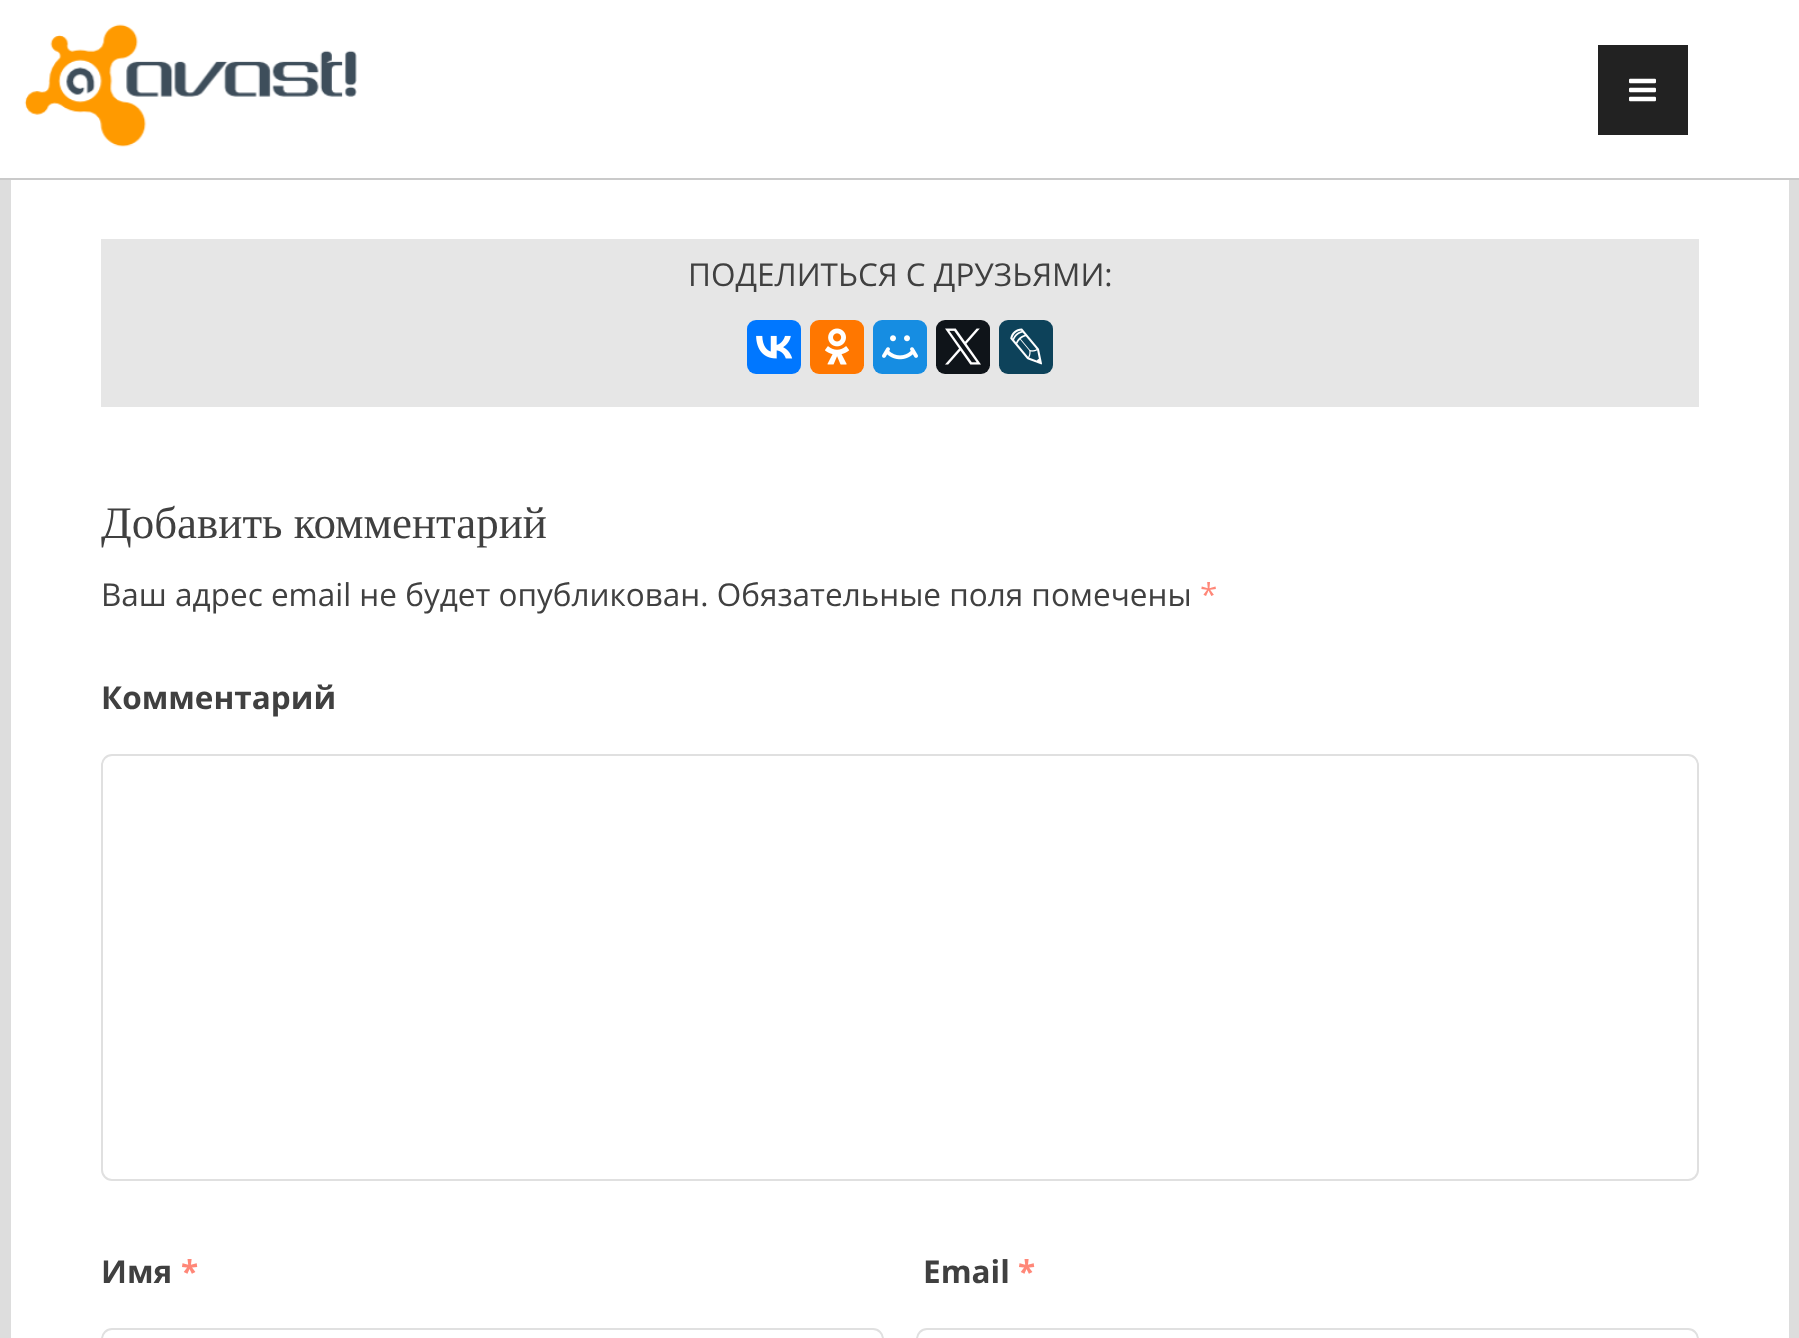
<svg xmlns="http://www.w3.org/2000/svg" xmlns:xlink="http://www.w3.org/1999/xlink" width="1799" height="1338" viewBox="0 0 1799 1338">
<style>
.cls-1{font:31.5px Open Sans;fill:#404040}
.cls-2{font:45px Liberation Serif;fill:#404040}
.cls-3{font:31.5px Open Sans;fill:#ff8778}
.cls-4{font:bold 31.5px Open Sans;fill:#404040}
.cls-5{font:bold 31.5px Open Sans;fill:#ff8778}
</style>
<rect width="100%" height="100%" fill="#dddddd"/>
<rect fill="#ffffff" x="11" y="180" width="1778" height="1158"/>
<rect fill="#ffffff" x="0" y="0" width="1799" height="178"/>
<rect fill="#cacaca" x="0" y="178" width="1799" height="2"/>
<image xlink:href="image0.png" x="24" y="24" width="333" height="123"/>
<rect fill="#222222" x="1598" y="45" width="90" height="90"/>
<image xlink:href="image1.png" x="1629" y="78" width="27" height="24"/>
<rect fill="#e6e6e6" x="101" y="239" width="1598" height="168"/>
<rect fill="#0077ff" x="747" y="320" width="54" height="54" rx="9"/>
<image xlink:href="image2.png" x="756" y="335" width="37" height="24"/>
<rect fill="#ff7700" x="810" y="320" width="54" height="54" rx="9"/>
<image xlink:href="image3.png" x="825" y="328" width="25" height="37"/>
<rect fill="#168de2" x="873" y="320" width="54" height="54" rx="9"/>
<image xlink:href="image4.png" x="882" y="335" width="36" height="25"/>
<rect fill="#0f1419" x="936" y="320" width="54" height="54" rx="9"/>
<image xlink:href="image5.png" x="945" y="328" width="36" height="37"/>
<rect fill="#0d425a" x="999" y="320" width="54" height="54" rx="9"/>
<image xlink:href="image6.png" x="1010" y="328" width="32" height="37"/>
<rect fill="none" stroke="#e0e0e0" stroke-width="2" x="102" y="755" width="1596" height="425" rx="10"/>
<rect fill="none" stroke="#e0e0e0" stroke-width="2" x="102" y="1329" width="781" height="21" rx="10"/>
<rect fill="none" stroke="#e0e0e0" stroke-width="2" x="917" y="1329" width="781" height="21" rx="10"/>
<text class="cls-1" x="688" y="286">ПОДЕЛИТЬСЯ С ДРУЗЬЯМИ:</text>
<text class="cls-2" x="101" y="538">Добавить комментарий</text>
<text class="cls-1" x="101" y="606">Ваш адрес email не будет опубликован. Обязательные поля помечены</text>
<text class="cls-3" x="1200" y="606">*</text>
<text class="cls-4" x="101" y="709">Комментарий</text>
<text class="cls-4" x="101" y="1283">Имя</text>
<text class="cls-5" x="181" y="1283">*</text>
<text class="cls-4" x="923" y="1283">Email</text>
<text class="cls-5" x="1018" y="1283">*</text>
</svg>
